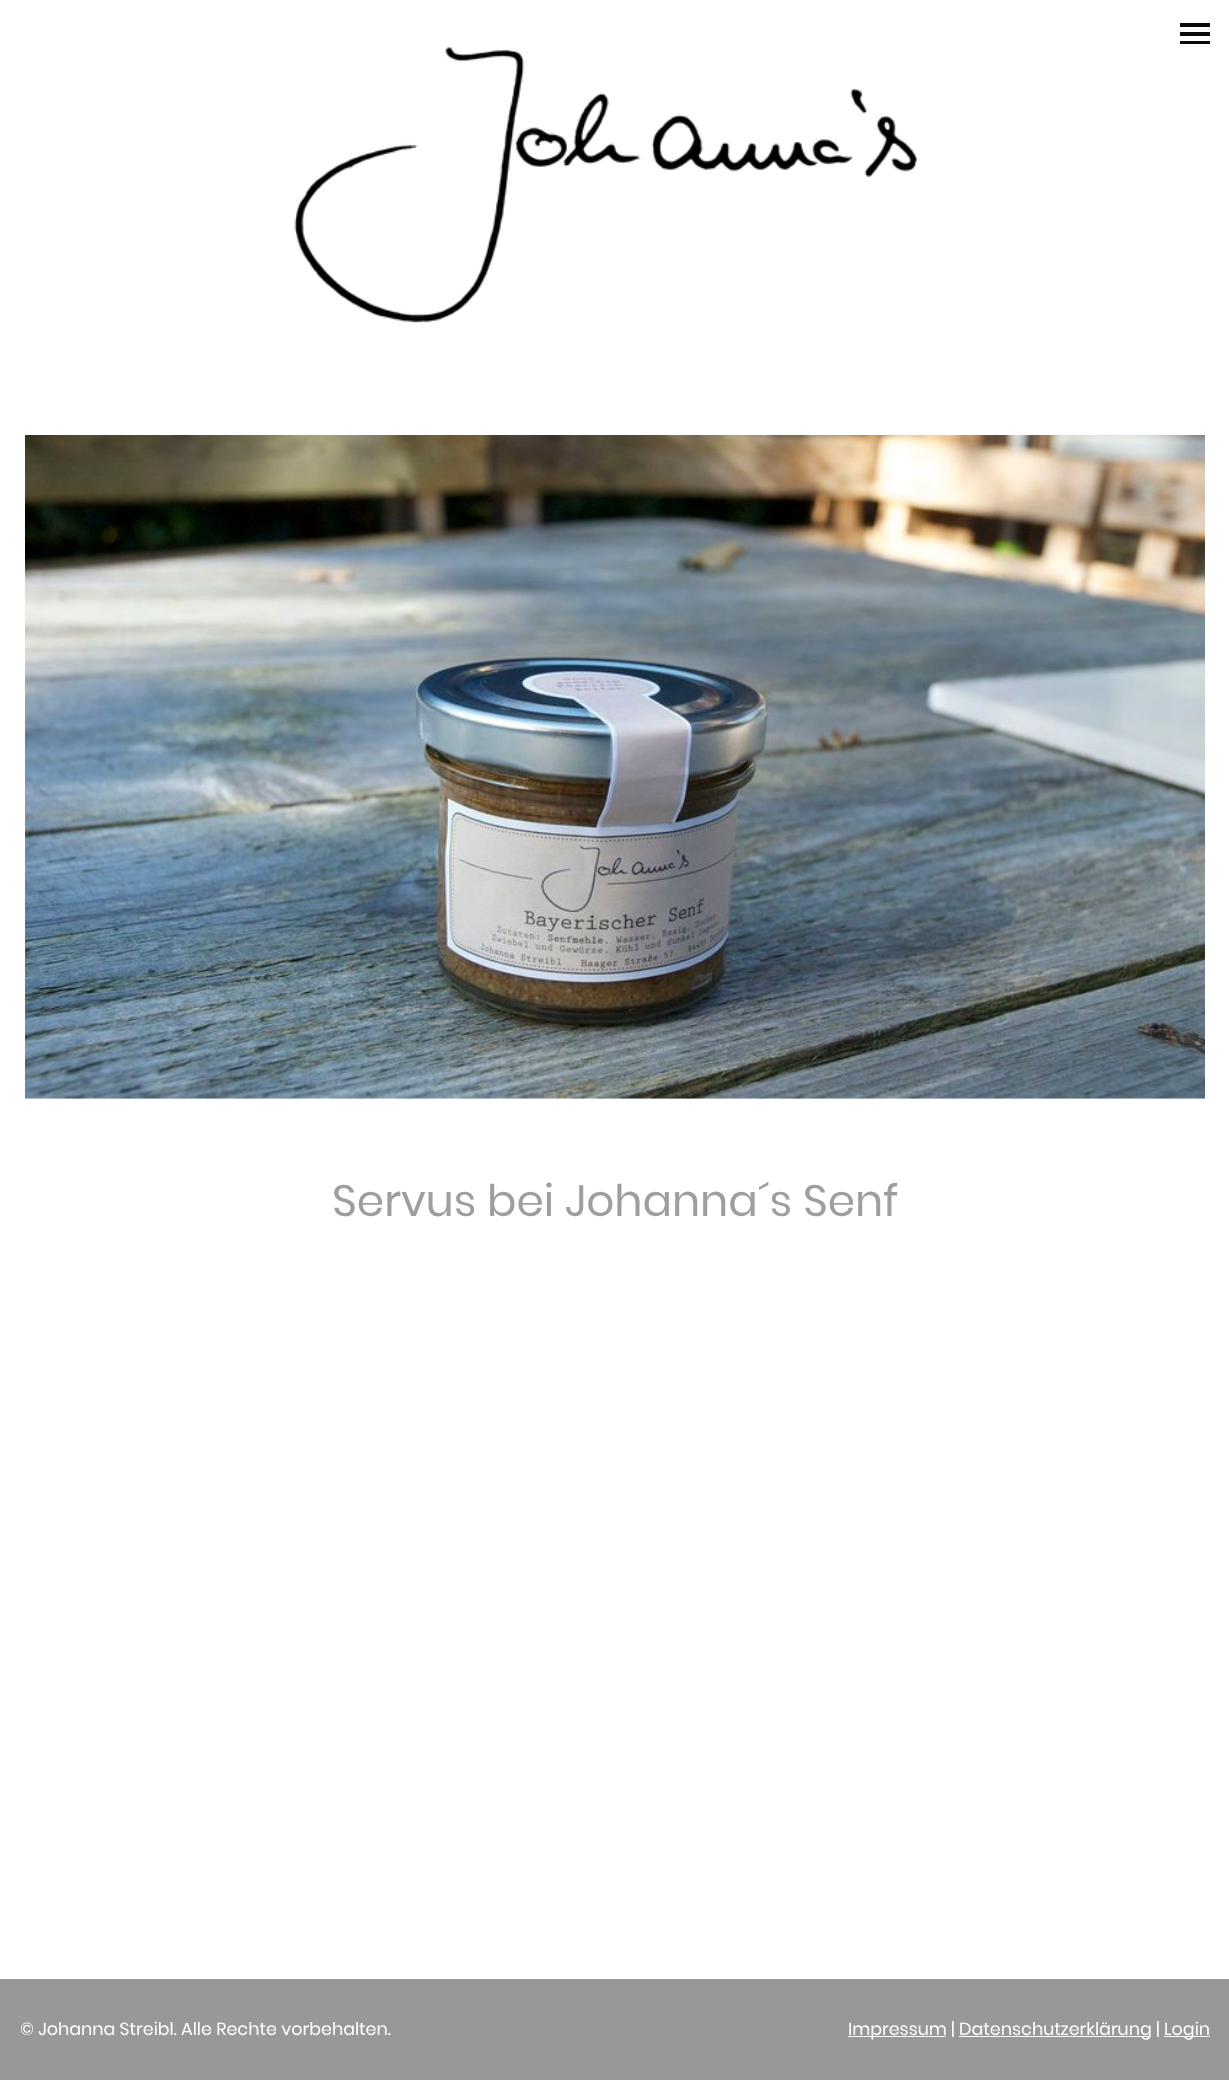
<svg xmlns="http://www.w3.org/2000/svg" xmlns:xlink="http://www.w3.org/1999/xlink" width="1229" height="2080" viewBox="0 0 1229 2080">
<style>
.cls-1{font:43.75px Poppins;fill:#9e9e9e}
.cls-2{font:17.5px Poppins;fill:#ffffff}
</style>
<rect width="100%" height="100%" fill="#ffffff"/>
<rect fill="#090a0a" x="1180" y="23" width="30" height="4"/>
<rect fill="#090a0a" x="1180" y="32" width="30" height="4"/>
<rect fill="#090a0a" x="1180" y="41" width="30" height="3"/>
<image xlink:href="image0.png" x="294" y="47" width="624" height="276"/>
<image xlink:href="image1.png" x="25" y="435" width="1180" height="664"/>
<rect fill="#989898" x="0" y="1979" width="1229" height="101"/>
<rect fill="#ffffff" x="848" y="2036" width="98" height="1"/>
<rect fill="#ffffff" x="959" y="2036" width="192" height="1"/>
<rect fill="#ffffff" x="1164" y="2036" width="46" height="1"/>
<text class="cls-1" x="332" y="1216">Servus bei Johanna´s Senf</text>
<text class="cls-2" x="20" y="2035">© Johanna Streibl. Alle Rechte vorbehalten.</text>
<text class="cls-2" x="848" y="2035">Impressum |</text>
<text class="cls-2" x="959" y="2035">Datenschutzerklärung |</text>
<text class="cls-2" x="1164" y="2035">Login</text>
</svg>
